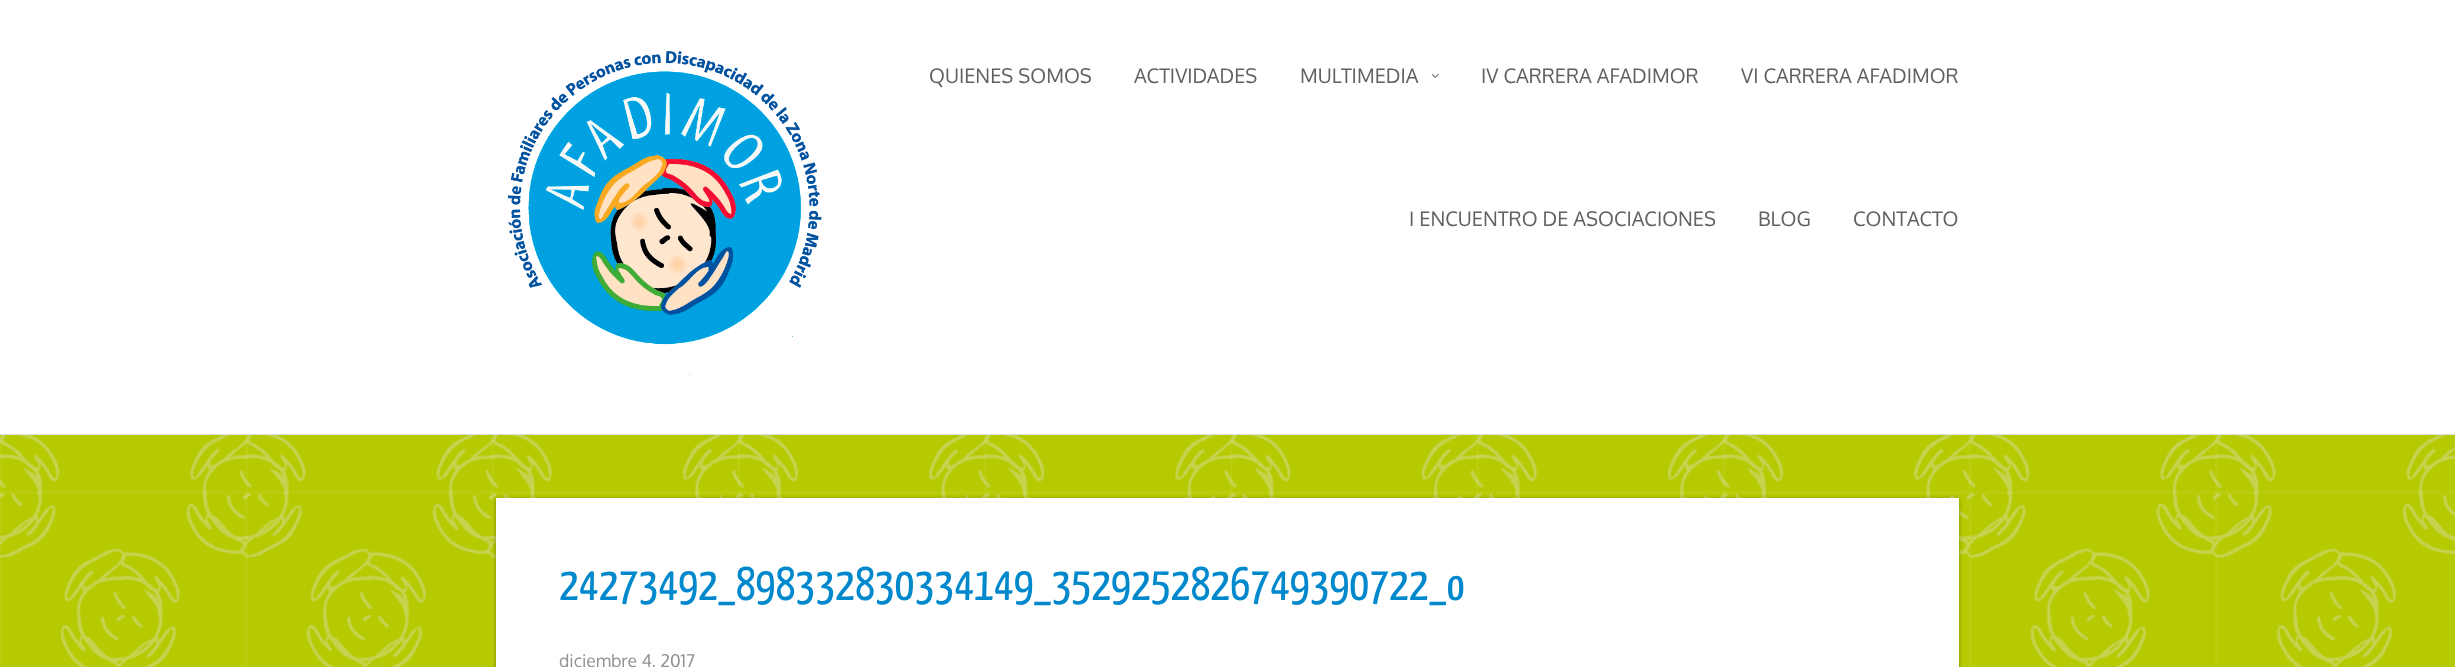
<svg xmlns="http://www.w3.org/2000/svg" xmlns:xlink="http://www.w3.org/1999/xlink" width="2455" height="667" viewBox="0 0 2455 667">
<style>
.cls-1{font:20px Oxygen;fill:#616161}
.cls-2{font:200 47.5px Yanone Kaffeesatz;fill:#0088cc}
.cls-3{font:17.5px Oxygen;fill:#919191}
</style>
<rect width="100%" height="100%" fill="#ffffff"/>
<image xlink:href="image0.png" x="0" y="435" width="2455" height="232"/>
<rect fill="#dddddd" x="0" y="434" width="2455" height="1"/>
<image xlink:href="image1.png" x="507" y="43" width="327" height="333"/>
<image xlink:href="image2.png" x="1431" y="73" width="8" height="5"/>
<rect fill="#221919" fill-opacity="0.4" filter="blur(2px)" x="496" y="499" width="1463" height="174"/>
<rect fill="#ffffff" x="496" y="498" width="1463" height="169"/>
<text class="cls-1" x="929" y="83">QUIENES SOMOS</text>
<text class="cls-1" x="1134" y="83">ACTIVIDADES</text>
<text class="cls-1" x="1300" y="83">MULTIMEDIA</text>
<text class="cls-1" x="1481" y="83">IV CARRERA AFADIMOR</text>
<text class="cls-1" x="1741" y="83">VI CARRERA AFADIMOR</text>
<text class="cls-1" x="1409" y="226">I ENCUENTRO DE ASOCIACIONES</text>
<text class="cls-1" x="1758" y="226">BLOG</text>
<text class="cls-1" x="1853" y="226">CONTACTO</text>
<text class="cls-2" x="559" y="600">24273492_898332830334149_3529252826749390722_o</text>
<text class="cls-3" x="559" y="667">diciembre 4, 2017</text>
</svg>
